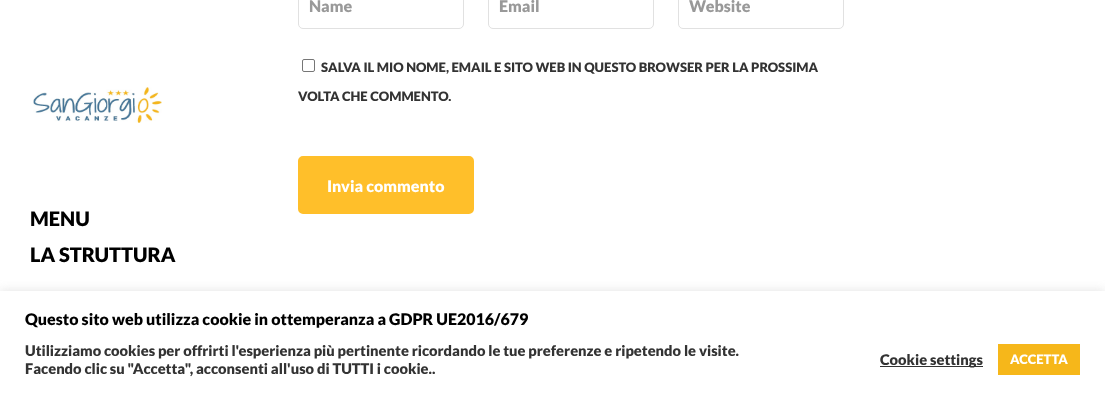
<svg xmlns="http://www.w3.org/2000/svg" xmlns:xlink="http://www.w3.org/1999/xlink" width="1105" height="394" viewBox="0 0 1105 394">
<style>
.cls-1{font:900 16px Lato;fill:#999999}
.cls-2{font:900 13px Lato;fill:#333333}
.cls-3{font:900 16px Lato;fill:#ffffff}
.cls-4{font:900 20px Lato;fill:#000000}
.cls-5{font:900 16px Lato;fill:#000000}
.cls-6{font:900 14.65px Lato;fill:#333333}
.cls-7{font:900 13px Lato;fill:#ffffff}
</style>
<rect width="100%" height="100%" fill="#ffffff"/>
<rect fill="none" stroke="#e1e1e1" x="298.5" y="-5.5" width="165" height="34" rx="4.5"/>
<rect fill="none" stroke="#e1e1e1" x="488.5" y="-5.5" width="165" height="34" rx="4.5"/>
<rect fill="none" stroke="#e1e1e1" x="678.5" y="-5.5" width="165" height="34" rx="4.5"/>
<rect fill="none" stroke="#767676" x="302.5" y="59.5" width="12" height="12" rx="1.5"/>
<rect fill="#ffbf2a" stroke="#ffbf2a" stroke-width="2" x="299" y="157" width="174" height="56" rx="4"/>
<image xlink:href="image0.png" x="33" y="87" width="129" height="36"/>
<rect fill="#acabab" fill-opacity="0.3" filter="blur(5px)" x="0" y="290" width="1105" height="103"/>
<rect fill="#ffffff" x="0" y="291" width="1105" height="103"/>
<rect fill="#333333" x="880" y="366" width="103" height="1"/>
<rect fill="#f6b71a" x="998" y="344" width="82" height="31"/>
<text class="cls-1" x="309" y="12">Name</text>
<text class="cls-1" x="499" y="12">Email</text>
<text class="cls-1" x="689" y="12">Website</text>
<text class="cls-2" x="321" y="72">SALVA IL MIO NOME, EMAIL E SITO WEB IN QUESTO BROWSER PER LA PROSSIMA</text>
<text class="cls-2" x="298" y="101">VOLTA CHE COMMENTO.</text>
<text class="cls-3" x="327" y="192">Invia commento</text>
<text class="cls-4"><tspan x="30" y="226">MENU</tspan><tspan x="30" y="262">LA STRUTTURA</tspan></text>
<text class="cls-5" x="25" y="325">Questo sito web utilizza cookie in ottemperanza a GDPR UE2016/679</text>
<text class="cls-6"><tspan x="25" y="356">Utilizziamo cookies per offrirti l'esperienza più pertinente ricordando le tue preferenze e ripetendo le visite.</tspan><tspan x="25" y="374">Facendo clic su "Accetta", acconsenti all'uso di TUTTI i cookie..</tspan></text>
<text class="cls-6" x="880" y="365">Cookie settings</text>
<text class="cls-7" x="1010" y="364">ACCETTA</text>
</svg>
